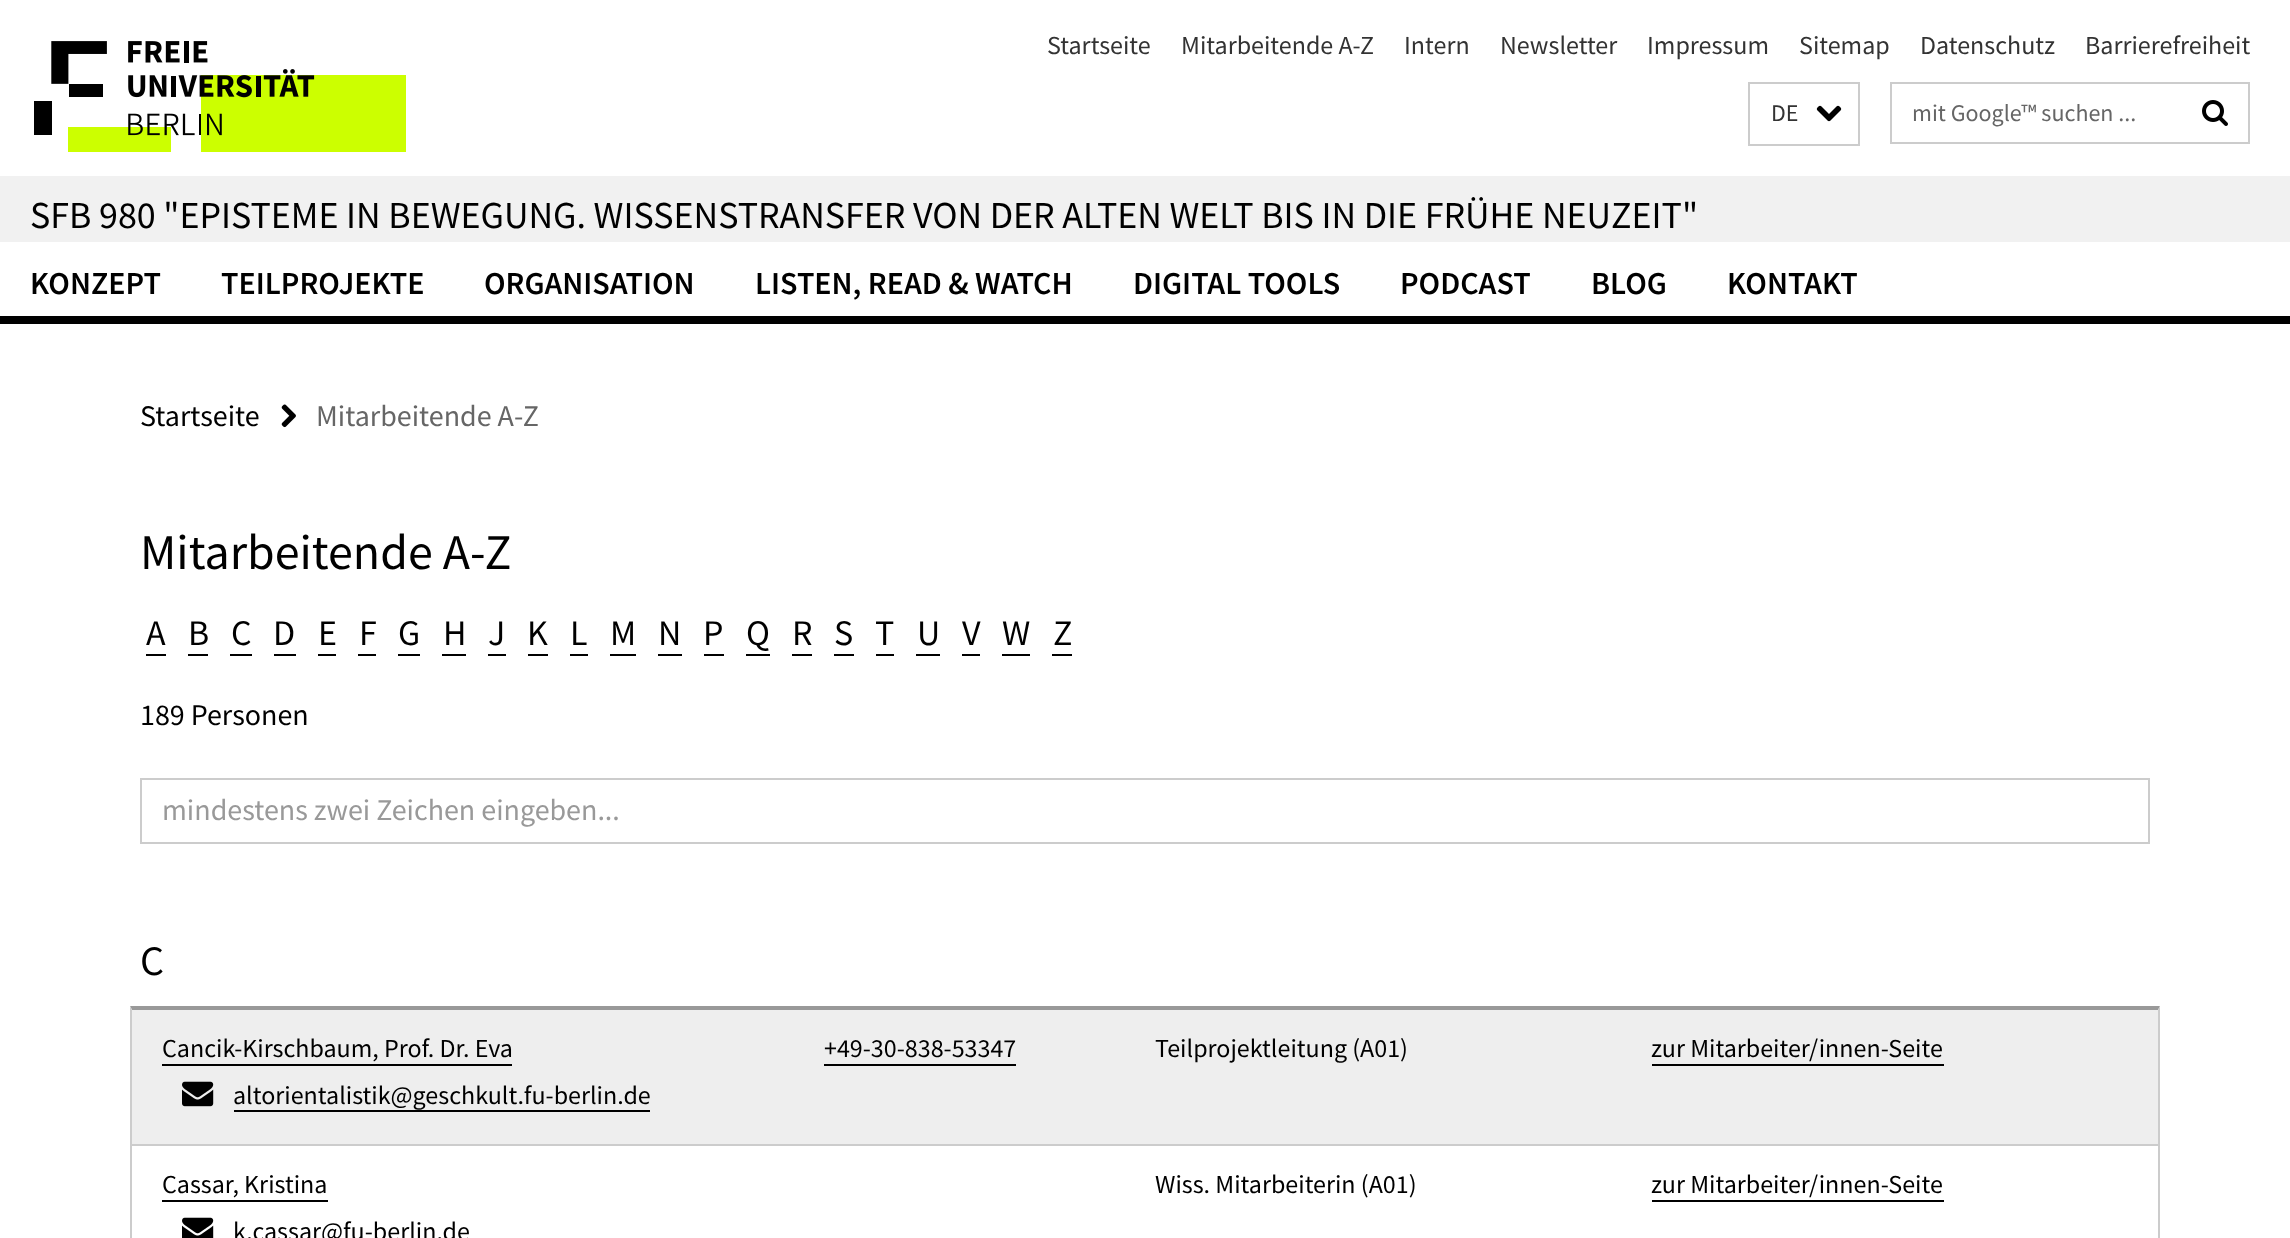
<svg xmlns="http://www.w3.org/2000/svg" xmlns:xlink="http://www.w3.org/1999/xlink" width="2290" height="1238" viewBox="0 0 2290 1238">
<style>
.cls-1{font:26px Source Sans Pro;fill:#333333}
.cls-2{font:24px Source Sans Pro;fill:#333333}
.cls-3{font:24px Source Sans Pro;fill:#666666}
.cls-4{font:38px Source Sans Pro;fill:#000000}
.cls-5{font:600 32px Source Sans Pro;fill:#000000}
.cls-6{font:30px Source Sans Pro;fill:#000000}
.cls-7{font:30px Source Sans Pro;fill:#666666}
.cls-8{font:50px Source Sans Pro;fill:#000000}
.cls-9{font:36px Source Sans Pro;fill:#000000}
.cls-10{font:30px Source Sans Pro;fill:#999999}
.cls-11{font:42px Source Sans Pro;fill:#000000}
.cls-12{font:26px Source Sans Pro;fill:#000000}
</style>
<rect width="100%" height="100%" fill="#ffffff"/>
<image xlink:href="image0.png" x="34" y="41" width="372" height="111"/>
<rect fill="none" stroke="#cccccc" stroke-width="2" x="1749" y="83" width="110" height="62"/>
<image xlink:href="image1.png" x="1816" y="105" width="26" height="17"/>
<rect fill="none" stroke="#cccccc" stroke-width="2" x="1891" y="83" width="358" height="60"/>
<image xlink:href="image2.png" x="2202" y="100" width="26" height="26"/>
<rect fill="#f1f1f1" x="0" y="176" width="2290" height="66"/>
<rect fill="#000000" x="0" y="316" width="2290" height="8"/>
<image xlink:href="image3.png" x="281" y="404" width="15" height="24"/>
<rect fill="#000000" x="146" y="654" width="20" height="2"/>
<rect fill="#000000" x="188" y="654" width="20" height="2"/>
<rect fill="#000000" x="230" y="654" width="22" height="2"/>
<rect fill="#000000" x="274" y="654" width="22" height="2"/>
<rect fill="#000000" x="318" y="654" width="18" height="2"/>
<rect fill="#000000" x="358" y="654" width="18" height="2"/>
<rect fill="#000000" x="398" y="654" width="22" height="2"/>
<rect fill="#000000" x="442" y="654" width="24" height="2"/>
<rect fill="#000000" x="488" y="654" width="18" height="2"/>
<rect fill="#000000" x="528" y="654" width="20" height="2"/>
<rect fill="#000000" x="570" y="654" width="18" height="2"/>
<rect fill="#000000" x="610" y="654" width="26" height="2"/>
<rect fill="#000000" x="658" y="654" width="24" height="2"/>
<rect fill="#000000" x="704" y="654" width="20" height="2"/>
<rect fill="#000000" x="746" y="654" width="24" height="2"/>
<rect fill="#000000" x="792" y="654" width="20" height="2"/>
<rect fill="#000000" x="834" y="654" width="20" height="2"/>
<rect fill="#000000" x="876" y="654" width="18" height="2"/>
<rect fill="#000000" x="916" y="654" width="24" height="2"/>
<rect fill="#000000" x="962" y="654" width="18" height="2"/>
<rect fill="#000000" x="1002" y="654" width="28" height="2"/>
<rect fill="#000000" x="1052" y="654" width="20" height="2"/>
<rect fill="none" stroke="#cccccc" stroke-width="2" x="141" y="779" width="2008" height="64"/>
<rect fill="#eeeeee" x="132" y="1010" width="2026" height="134"/>
<path fill="#999999" d="M130 1006H2160L2158 1010H132Z"/>
<path fill="#cccccc" d="M2160 1006V1146L2158 1144V1010Z"/>
<path fill="#cccccc" d="M130 1146V1006L132 1010V1144Z"/>
<rect fill="#000000" x="162" y="1064" width="350" height="2"/>
<image xlink:href="image4.png" x="182" y="1081" width="32" height="26"/>
<rect fill="#000000" x="234" y="1110" width="416" height="2"/>
<rect fill="#000000" x="824" y="1064" width="192" height="2"/>
<rect fill="#000000" x="1652" y="1064" width="292" height="2"/>
<rect fill="none" stroke="#cccccc" stroke-width="2" x="131" y="1145" width="2028" height="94"/>
<rect fill="#000000" x="162" y="1200" width="166" height="2"/>
<image xlink:href="image5.png" x="182" y="1217" width="32" height="21"/>
<rect fill="#000000" x="1652" y="1200" width="292" height="2"/>
<text class="cls-1" x="1047" y="54">Startseite</text>
<text class="cls-1" x="1181" y="54">Mitarbeitende A-Z</text>
<text class="cls-1" x="1404" y="54">Intern</text>
<text class="cls-1" x="1500" y="54">Newsletter</text>
<text class="cls-1" x="1647" y="54">Impressum</text>
<text class="cls-1" x="1799" y="54">Sitemap</text>
<text class="cls-1" x="1920" y="54">Datenschutz</text>
<text class="cls-1" x="2085" y="54">Barrierefreiheit</text>
<text class="cls-2" x="1771" y="121">DE</text>
<text class="cls-3" x="1912" y="121">mit Google™ suchen ...</text>
<text class="cls-4" x="30" y="228">SFB 980 "EPISTEME IN BEWEGUNG. WISSENSTRANSFER VON DER ALTEN WELT BIS IN DIE FRÜHE NEUZEIT"</text>
<text class="cls-5" x="30" y="294">KONZEPT</text>
<text class="cls-5" x="221" y="294">TEILPROJEKTE</text>
<text class="cls-5" x="484" y="294">ORGANISATION</text>
<text class="cls-5" x="755" y="294">LISTEN, READ &amp; WATCH</text>
<text class="cls-5" x="1133" y="294">DIGITAL TOOLS</text>
<text class="cls-5" x="1400" y="294">PODCAST</text>
<text class="cls-5" x="1591" y="294">BLOG</text>
<text class="cls-5" x="1727" y="294">KONTAKT</text>
<text class="cls-6" x="140" y="426">Startseite</text>
<text class="cls-7" x="316" y="426">Mitarbeitende A-Z</text>
<text class="cls-8" x="140" y="569">Mitarbeitende A-Z</text>
<text class="cls-9" x="146" y="645">A</text>
<text class="cls-9" x="188" y="645">B</text>
<text class="cls-9" x="231" y="645">C</text>
<text class="cls-9" x="273" y="645">D</text>
<text class="cls-9" x="318" y="645">E</text>
<text class="cls-9" x="359" y="645">F</text>
<text class="cls-9" x="398" y="645">G</text>
<text class="cls-9" x="443" y="645">H</text>
<text class="cls-9" x="488" y="645">J</text>
<text class="cls-9" x="527" y="645">K</text>
<text class="cls-9" x="570" y="645">L</text>
<text class="cls-9" x="610" y="645">M</text>
<text class="cls-9" x="658" y="645">N</text>
<text class="cls-9" x="703" y="645">P</text>
<text class="cls-9" x="746" y="645">Q</text>
<text class="cls-9" x="792" y="645">R</text>
<text class="cls-9" x="834" y="645">S</text>
<text class="cls-9" x="875" y="645">T</text>
<text class="cls-9" x="917" y="645">U</text>
<text class="cls-9" x="962" y="645">V</text>
<text class="cls-9" x="1002" y="645">W</text>
<text class="cls-9" x="1053" y="645">Z</text>
<text class="cls-6" x="140" y="725">189 Personen</text>
<text class="cls-10" x="162" y="820">mindestens zwei Zeichen eingeben...</text>
<text class="cls-11" x="140" y="975">C</text>
<text class="cls-12" x="162" y="1057">Cancik-Kirschbaum, Prof. Dr. Eva</text>
<text class="cls-12" x="233" y="1104">altorientalistik@geschkult.fu-berlin.de</text>
<text class="cls-12" x="824" y="1057">+49-30-838-53347</text>
<text class="cls-12" x="1155" y="1057">Teilprojektleitung (A01)</text>
<text class="cls-12" x="1651" y="1057">zur Mitarbeiter/innen-Seite</text>
<text class="cls-12" x="162" y="1193">Cassar, Kristina</text>
<text class="cls-12" x="233" y="1240">k.cassar@fu-berlin.de</text>
<text class="cls-12" x="1155" y="1193">Wiss. Mitarbeiterin (A01)</text>
<text class="cls-12" x="1651" y="1193">zur Mitarbeiter/innen-Seite</text>
</svg>
